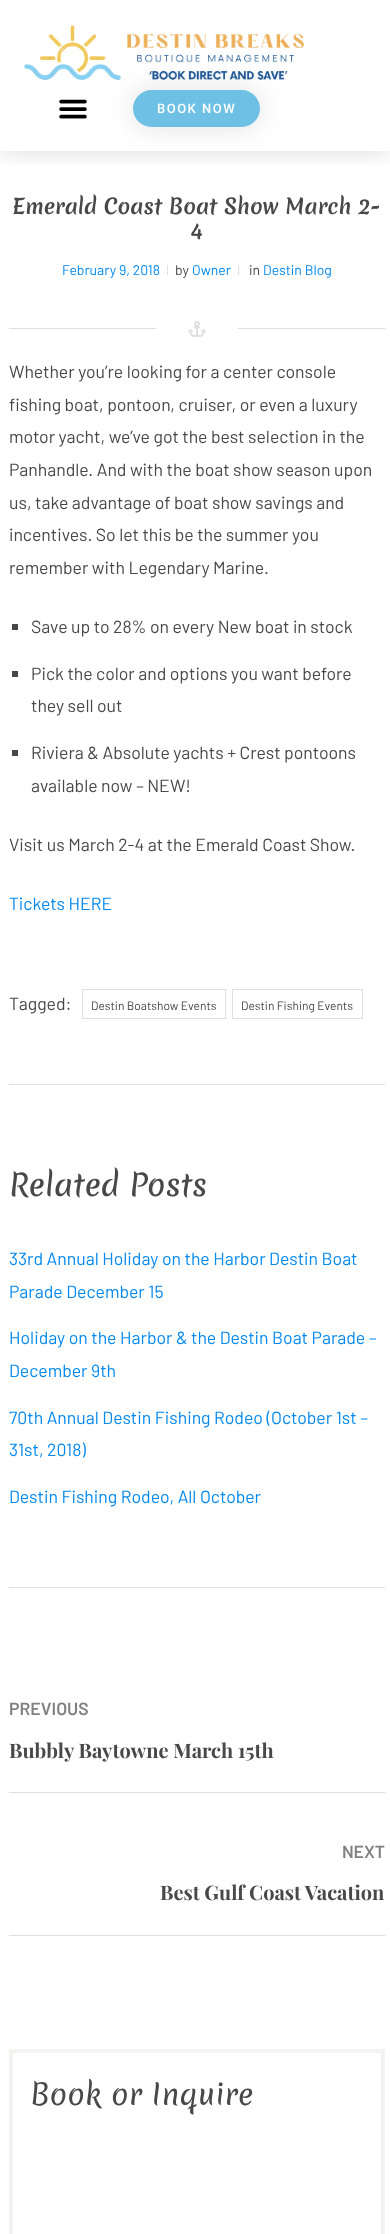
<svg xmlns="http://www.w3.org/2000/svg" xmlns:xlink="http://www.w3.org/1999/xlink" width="390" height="2234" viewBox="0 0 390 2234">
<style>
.cls-1{font:500 13px Roboto;letter-spacing:1.5px;fill:#ffffff}
.cls-2{font:bold 20.75px Merienda;fill:#484848}
.cls-3{font:14px Barlow;fill:#0489ef}
.cls-4{font:14px Barlow;fill:#484848}
.cls-5{font:17.6px Barlow;fill:#484848}
.cls-6{font:17.6px Barlow;fill:#0489ef}
.cls-7{font:12px Barlow;fill:#484848}
.cls-8{font:500 30px Merienda;fill:#484848}
.cls-9{font:600 17.6px Barlow;fill:#808080}
.cls-10{font:bold 20px Playfair Display;fill:#484848}
.cls-11{font:28.75px Merienda;fill:#484848}
</style>
<defs>
<clipPath id="clip1"><rect x="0" y="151" width="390" height="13"/></clipPath>
</defs>
<rect width="100%" height="100%" fill="#ffffff"/>
<g clip-path="url(#clip1)">
<rect fill="#000000" fill-opacity="0.15" filter="blur(12px)" x="0" y="0" width="390" height="151"/>
</g>
<image xlink:href="image0.png" x="24" y="25" width="281" height="56"/>
<image xlink:href="image1.png" x="59" y="99" width="28" height="20"/>
<rect fill="#000000" fill-opacity="0.12" filter="blur(13.5px)" x="133" y="90" width="127" height="37" rx="18.5"/>
<rect fill="#6ec1e4" x="133" y="90" width="127" height="37" rx="18.5"/>
<rect fill="#e0e0e0" x="9" y="328" width="376" height="1"/>
<rect fill="#e0e0e0" x="167" y="265" width="1" height="10"/>
<rect fill="#e0e0e0" x="238" y="265" width="1" height="10"/>
<rect fill="#ffffff" x="156" y="328" width="82" height="1"/>
<image xlink:href="image2.png" x="188" y="321" width="18" height="16"/>
<rect fill="#484848" x="12" y="624" width="6" height="6"/>
<rect fill="#484848" x="12" y="671" width="6" height="6"/>
<rect fill="#484848" x="12" y="750" width="6" height="6"/>
<rect fill="none" stroke="#e0e0e0" x="82.5" y="989.5" width="143" height="29"/>
<rect fill="none" stroke="#e0e0e0" x="232.5" y="989.5" width="130" height="29"/>
<rect fill="#e0e0e0" x="9" y="1084" width="376" height="1"/>
<rect fill="#e0e0e0" x="9" y="1587" width="376" height="1"/>
<rect fill="#e0e0e0" x="9" y="1935" width="376" height="1"/>
<rect fill="#e0e0e0" x="9" y="1792" width="376" height="1"/>
<rect fill="none" stroke="#f5f3f1" stroke-width="4" x="11" y="2051" width="372" height="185"/>
<text class="cls-1" x="157" y="113">BOOK NOW</text>
<text class="cls-2" x="12" y="214">Emerald Coast Boat Show March 2-</text>
<text class="cls-2" x="191" y="239">4</text>
<text class="cls-3" x="62" y="275">February 9, 2018</text>
<text class="cls-4" x="175" y="275">by</text>
<text class="cls-3" x="192" y="275">Owner</text>
<text class="cls-4" x="249" y="275">in</text>
<text class="cls-3" x="263" y="275">Destin Blog</text>
<text class="cls-5"><tspan x="9" y="378">Whether you’re looking for a center console</tspan><tspan x="9" y="411">fishing boat, pontoon, cruiser, or even a luxury</tspan><tspan x="9" y="443">motor yacht, we’ve got the best selection in the</tspan><tspan x="9" y="476">Panhandle. And with the boat show season upon</tspan><tspan x="9" y="509">us, take advantage of boat show savings and</tspan><tspan x="9" y="541">incentives. So let this be the summer you</tspan><tspan x="9" y="574">remember with Legendary Marine.</tspan></text>
<text class="cls-5" x="31" y="633">Save up to 28% on every New boat in stock</text>
<text class="cls-5"><tspan x="31" y="680">Pick the color and options you want before</tspan><tspan x="31" y="712">they sell out</tspan></text>
<text class="cls-5"><tspan x="31" y="759">Riviera &amp; Absolute yachts + Crest pontoons</tspan><tspan x="31" y="792">available now – NEW!</tspan></text>
<text class="cls-5" x="9" y="851">Visit us March 2-4 at the Emerald Coast Show.</text>
<text class="cls-6" x="9" y="910">Tickets HERE</text>
<text class="cls-5" x="9" y="1010">Tagged:</text>
<text class="cls-7" x="91" y="1010">Destin Boatshow Events</text>
<text class="cls-7" x="241" y="1010">Destin Fishing Events</text>
<text class="cls-8" x="9" y="1196">Related Posts</text>
<text class="cls-6"><tspan x="9" y="1265">33rd Annual Holiday on the Harbor Destin Boat</tspan><tspan x="9" y="1298">Parade December 15</tspan></text>
<text class="cls-6"><tspan x="9" y="1344">Holiday on the Harbor &amp; the Destin Boat Parade –</tspan><tspan x="9" y="1377">December 9th</tspan></text>
<text class="cls-6"><tspan x="9" y="1424">70th Annual Destin Fishing Rodeo (October 1st –</tspan><tspan x="9" y="1456">31st, 2018)</tspan></text>
<text class="cls-6" x="9" y="1503">Destin Fishing Rodeo, All October</text>
<text class="cls-9" x="9" y="1715">PREVIOUS</text>
<text class="cls-10" x="9" y="1758">Bubbly Baytowne March 15th</text>
<text class="cls-9" x="342" y="1858">NEXT</text>
<text class="cls-10" x="160" y="1900">Best Gulf Coast Vacation</text>
<text class="cls-11" x="30" y="2105">Book or Inquire</text>
</svg>
